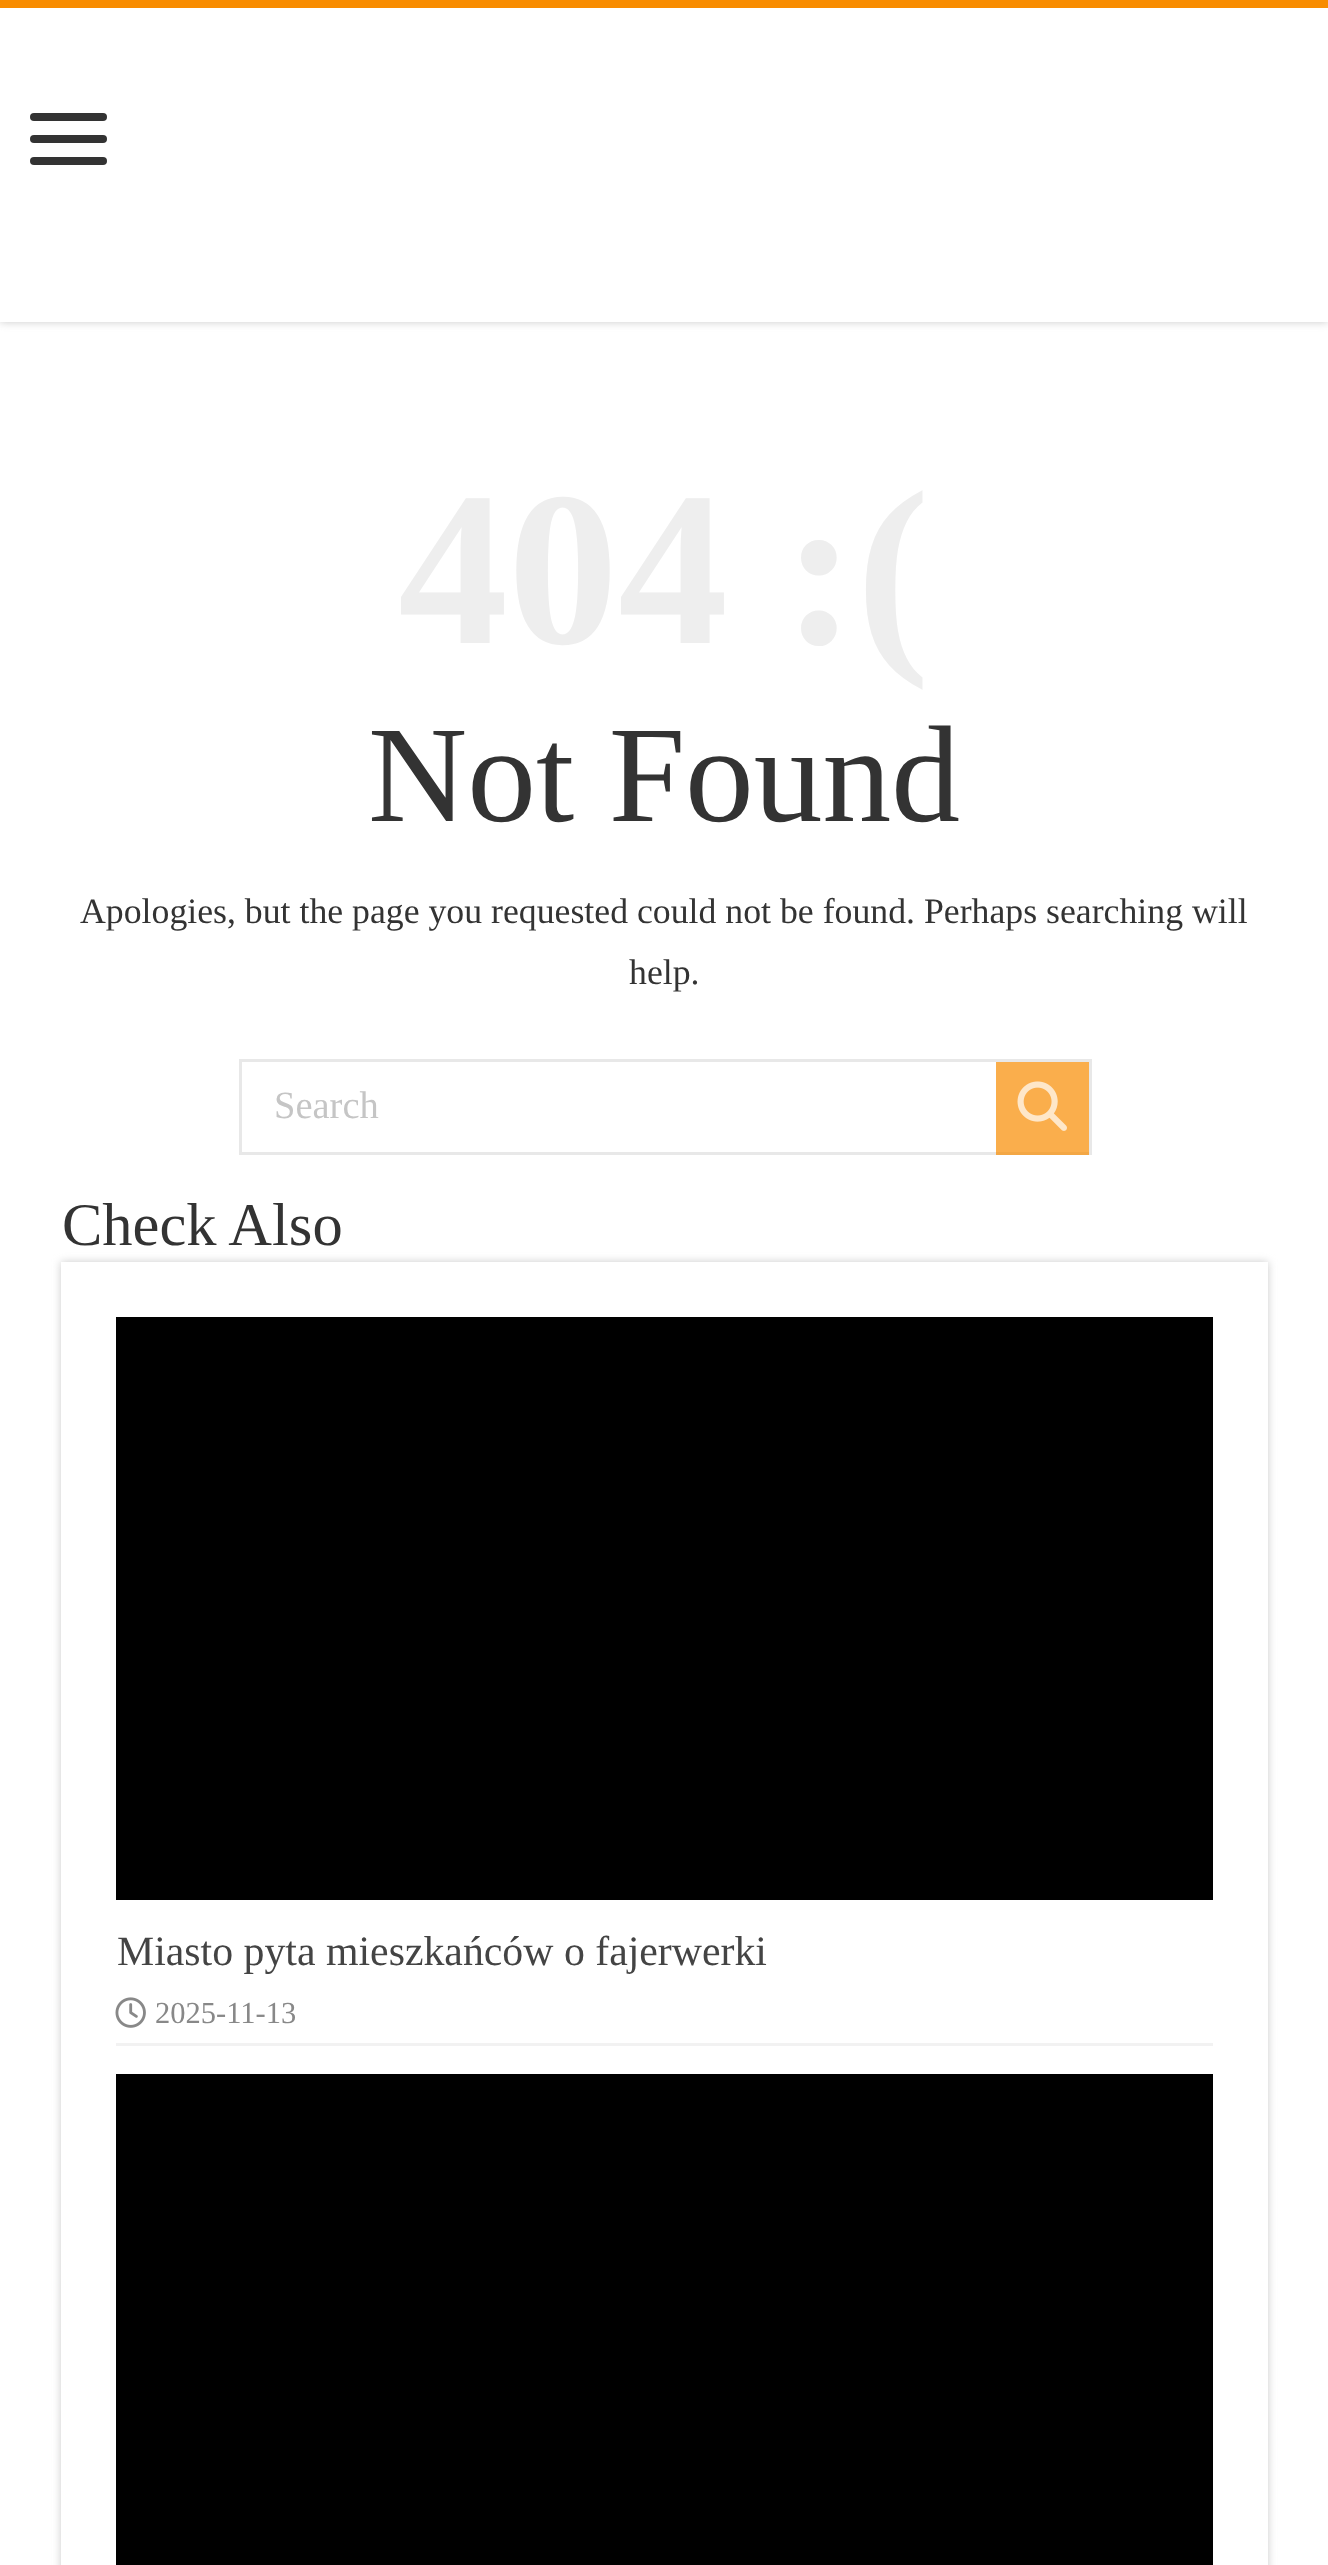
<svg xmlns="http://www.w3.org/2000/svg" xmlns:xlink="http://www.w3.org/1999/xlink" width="1328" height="2565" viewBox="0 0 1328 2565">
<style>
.cls-1{font:bold 220px Liberation Serif;fill:#eeeeee}
.cls-2{font:137.5px Liberation Serif;fill:#333333}
.cls-3{font:35.75px Liberation Serif;fill:#333333}
.cls-4{font:38.5px Liberation Serif;fill:#c5c5c5}
.cls-5{font:60.5px Liberation Serif;fill:#333333}
.cls-6{font:41.8px Liberation Serif;fill:#444444}
.cls-7{font:30.5px Liberation Serif;fill:#888888}
</style>
<rect width="100%" height="100%" fill="#ffffff"/>
<rect fill="#cacaca" filter="blur(4px)" x="0" y="0" width="1328" height="322"/>
<rect fill="#ffffff" x="0" y="8" width="1328" height="314"/>
<rect fill="#f88c00" x="0" y="0" width="1328" height="8"/>
<rect fill="#333333" x="30" y="113" width="77" height="8" rx="4"/>
<rect fill="#333333" x="30" y="135" width="77" height="8" rx="4"/>
<rect fill="#333333" x="30" y="157" width="77" height="8" rx="4"/>
<rect fill="none" stroke="#e8e8e8" stroke-width="3" x="240.5" y="1060.5" width="850" height="93"/>
<rect fill="#f88c00" fill-opacity="0.7" x="996" y="1062" width="93" height="93"/>
<image xlink:href="image0.png" x="1017" y="1081" width="50" height="50"/>
<rect fill="#cacaca" filter="blur(4px)" x="61" y="1262" width="1207" height="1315"/>
<rect fill="#ffffff" x="61" y="1262" width="1207" height="1303"/>
<rect fill="#000000" x="116" y="1317" width="1097" height="583"/>
<rect fill="#f2f2f2" x="116" y="2043" width="1097" height="3"/>
<image xlink:href="image1.png" x="115" y="1997" width="31" height="31"/>
<rect fill="#000000" x="116" y="2074" width="1097" height="491"/>
<text class="cls-1" x="398" y="643">404 :(</text>
<text class="cls-2" x="368" y="821">Not Found</text>
<text class="cls-3" x="80" y="923">Apologies, but the page you requested could not be found. Perhaps searching will</text>
<text class="cls-3" x="629" y="984">help.</text>
<text class="cls-4" x="274" y="1118">Search</text>
<text class="cls-5" x="62" y="1245">Check Also</text>
<text class="cls-6" x="117" y="1965">Miasto pyta mieszkańców o fajerwerki</text>
<text class="cls-7" x="155" y="2023">2025-11-13</text>
</svg>
